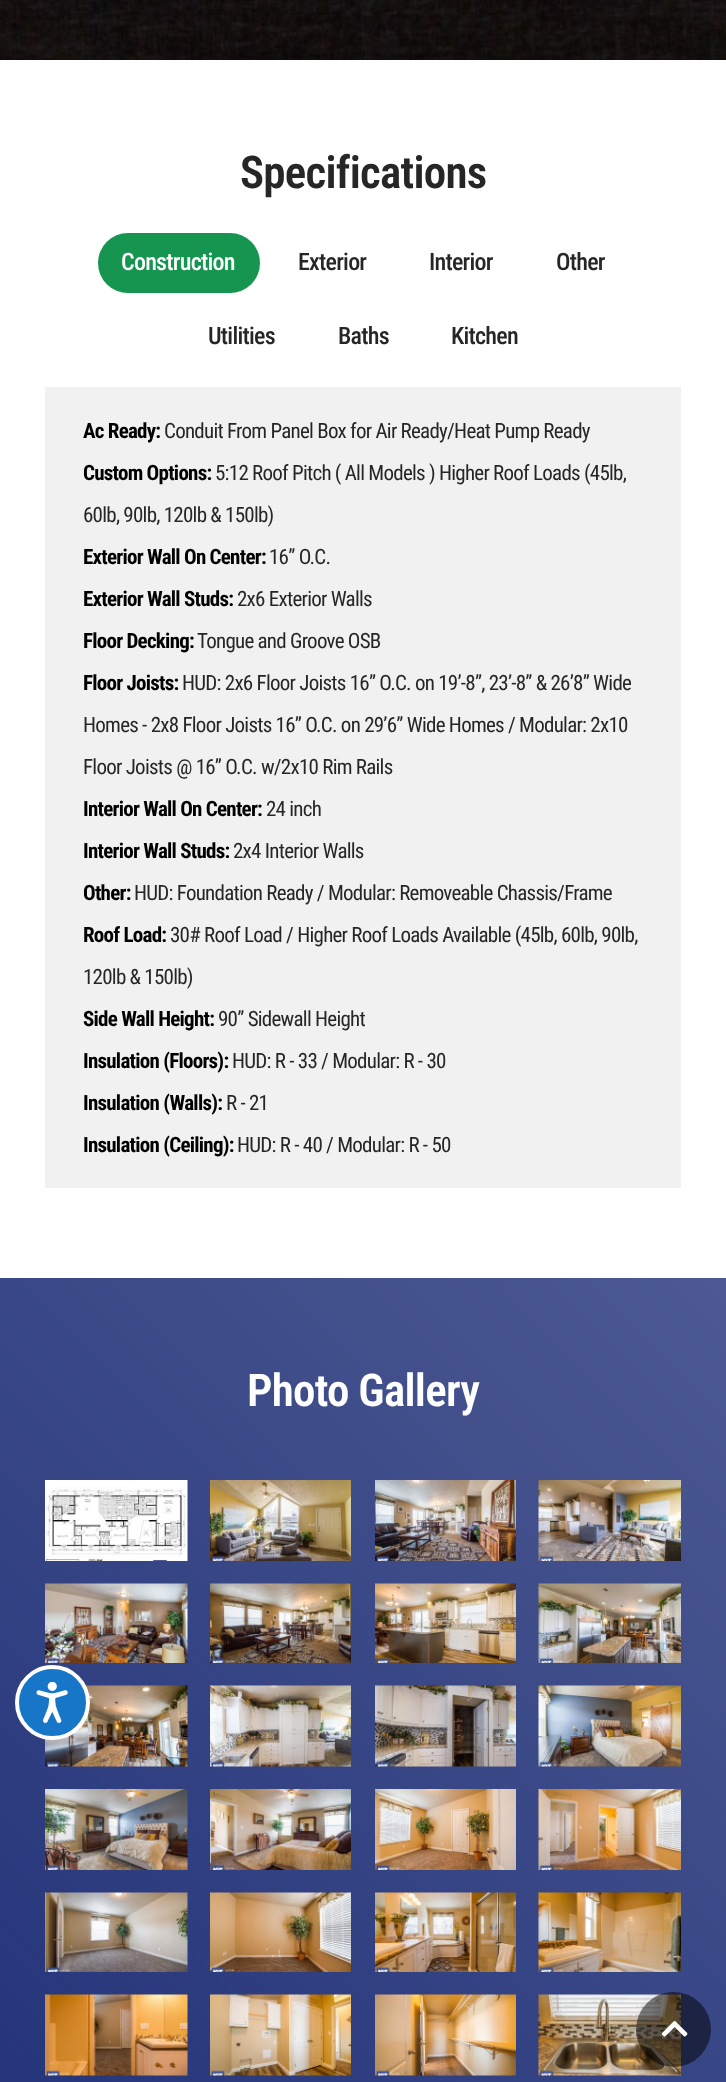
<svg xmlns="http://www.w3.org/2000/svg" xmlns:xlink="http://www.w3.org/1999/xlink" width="726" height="2082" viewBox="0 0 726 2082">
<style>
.cls-1{font:600 45px Roboto Condensed;letter-spacing:-0.75px;fill:#262626}
.cls-2{font:500 24px Roboto Condensed;letter-spacing:-0.75px;fill:#ffffff}
.cls-3{font:500 24px Roboto Condensed;letter-spacing:-0.75px;fill:#262626}
.cls-4{font:bold 21px Roboto Condensed;letter-spacing:-0.75px;fill:#000000}
.cls-5{font:21px Roboto Condensed;letter-spacing:-0.75px;fill:#262626}
.cls-6{font:600 45px Roboto Condensed;letter-spacing:-0.75px;fill:#ffffff}
</style>
<defs>
<linearGradient id="g1" gradientUnits="userSpaceOnUse" x1="-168" y1="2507" x2="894" y2="1446"><stop offset="0" stop-color="#162771"/><stop offset="1" stop-color="#4c5992"/></linearGradient>
</defs>
<rect width="100%" height="100%" fill="#ffffff"/>
<rect fill="#09102d" x="0" y="59" width="726" height="1"/>
<image xlink:href="image0.png" x="0" y="0" width="726" height="60"/>
<rect fill="#159550" x="98" y="233" width="162" height="60" rx="30"/>
<rect fill="#f1f1f1" x="45" y="387" width="636" height="801"/>
<rect fill="url(#g1)" x="0" y="1278" width="726" height="804"/>
<image xlink:href="image1.png" x="45" y="1480" width="143" height="81"/>
<image xlink:href="image2.png" x="210" y="1480" width="141" height="81"/>
<image xlink:href="image3.png" x="375" y="1480" width="141" height="81"/>
<image xlink:href="image4.png" x="538" y="1480" width="143" height="81"/>
<image xlink:href="image5.png" x="45" y="1583" width="143" height="80"/>
<image xlink:href="image6.png" x="210" y="1583" width="141" height="80"/>
<image xlink:href="image7.png" x="375" y="1583" width="141" height="80"/>
<image xlink:href="image8.png" x="538" y="1583" width="143" height="80"/>
<image xlink:href="image9.png" x="45" y="1685" width="143" height="82"/>
<image xlink:href="image10.png" x="210" y="1685" width="141" height="82"/>
<image xlink:href="image11.png" x="375" y="1685" width="141" height="82"/>
<image xlink:href="image12.png" x="538" y="1685" width="143" height="82"/>
<image xlink:href="image13.png" x="45" y="1789" width="143" height="81"/>
<image xlink:href="image14.png" x="210" y="1789" width="141" height="81"/>
<image xlink:href="image15.png" x="375" y="1789" width="141" height="81"/>
<image xlink:href="image16.png" x="538" y="1789" width="143" height="81"/>
<image xlink:href="image17.png" x="45" y="1892" width="143" height="80"/>
<image xlink:href="image18.png" x="210" y="1892" width="141" height="80"/>
<image xlink:href="image19.png" x="375" y="1892" width="141" height="80"/>
<image xlink:href="image20.png" x="538" y="1892" width="143" height="80"/>
<image xlink:href="image21.png" x="45" y="1994" width="143" height="82"/>
<image xlink:href="image22.png" x="210" y="1994" width="141" height="82"/>
<image xlink:href="image23.png" x="375" y="1994" width="141" height="82"/>
<image xlink:href="image24.png" x="538" y="1994" width="143" height="82"/>
<circle fill="#1876c9" stroke="#ffffff" stroke-width="4" cx="52.5" cy="1702.5" r="35.5"/>
<image xlink:href="image25.png" x="36" y="1682" width="32" height="41"/>
<circle fill="#000000" fill-opacity="0.5" cx="673.5" cy="2029.5" r="37.5"/>
<image xlink:href="image26.png" x="661" y="2021" width="27" height="16"/>
<text class="cls-1" x="240" y="188">Specifications</text>
<text class="cls-2" x="121" y="270">Construction</text>
<text class="cls-3" x="298" y="270">Exterior</text>
<text class="cls-3" x="429" y="270">Interior</text>
<text class="cls-3" x="556" y="270">Other</text>
<text class="cls-3" x="208" y="344">Utilities</text>
<text class="cls-3" x="338" y="344">Baths</text>
<text class="cls-3" x="451" y="344">Kitchen</text>
<text class="cls-4" x="83" y="438">Ac Ready:</text>
<text class="cls-5" x="164" y="438">Conduit From Panel Box for Air Ready/Heat Pump Ready</text>
<text class="cls-4" x="83" y="480">Custom Options:</text>
<text class="cls-5" x="215" y="480">5:12 Roof Pitch ( All Models ) Higher Roof Loads (45lb,</text>
<text class="cls-5" x="83" y="522">60lb, 90lb, 120lb &amp; 150lb)</text>
<text class="cls-4" x="83" y="564">Exterior Wall On Center:</text>
<text class="cls-5" x="269" y="564">16” O.C.</text>
<text class="cls-4" x="83" y="606">Exterior Wall Studs:</text>
<text class="cls-5" x="237" y="606">2x6 Exterior Walls</text>
<text class="cls-4" x="83" y="648">Floor Decking:</text>
<text class="cls-5" x="197" y="648">Tongue and Groove OSB</text>
<text class="cls-4" x="83" y="690">Floor Joists:</text>
<text class="cls-5" x="182" y="690">HUD: 2x6 Floor Joists 16” O.C. on 19’-8”, 23’-8” &amp; 26’8” Wide</text>
<text class="cls-5" x="83" y="732">Homes - 2x8 Floor Joists 16” O.C. on 29’6” Wide Homes / Modular: 2x10</text>
<text class="cls-5" x="83" y="774">Floor Joists @ 16” O.C. w/2x10 Rim Rails</text>
<text class="cls-4" x="83" y="816">Interior Wall On Center:</text>
<text class="cls-5" x="266" y="816">24 inch</text>
<text class="cls-4" x="83" y="858">Interior Wall Studs:</text>
<text class="cls-5" x="233" y="858">2x4 Interior Walls</text>
<text class="cls-4" x="83" y="900">Other:</text>
<text class="cls-5" x="134" y="900">HUD: Foundation Ready / Modular: Removeable Chassis/Frame</text>
<text class="cls-4" x="83" y="942">Roof Load:</text>
<text class="cls-5" x="170" y="942">30# Roof Load / Higher Roof Loads Available (45lb, 60lb, 90lb,</text>
<text class="cls-5" x="83" y="984">120lb &amp; 150lb)</text>
<text class="cls-4" x="83" y="1026">Side Wall Height:</text>
<text class="cls-5" x="218" y="1026">90” Sidewall Height</text>
<text class="cls-4" x="83" y="1068">Insulation (Floors):</text>
<text class="cls-5" x="232" y="1068">HUD: R - 33 / Modular: R - 30</text>
<text class="cls-4" x="83" y="1110">Insulation (Walls):</text>
<text class="cls-5" x="226" y="1110">R - 21</text>
<text class="cls-4" x="83" y="1152">Insulation (Ceiling):</text>
<text class="cls-5" x="237" y="1152">HUD: R - 40 / Modular: R - 50</text>
<text class="cls-6" x="247" y="1406">Photo Gallery</text>
</svg>
